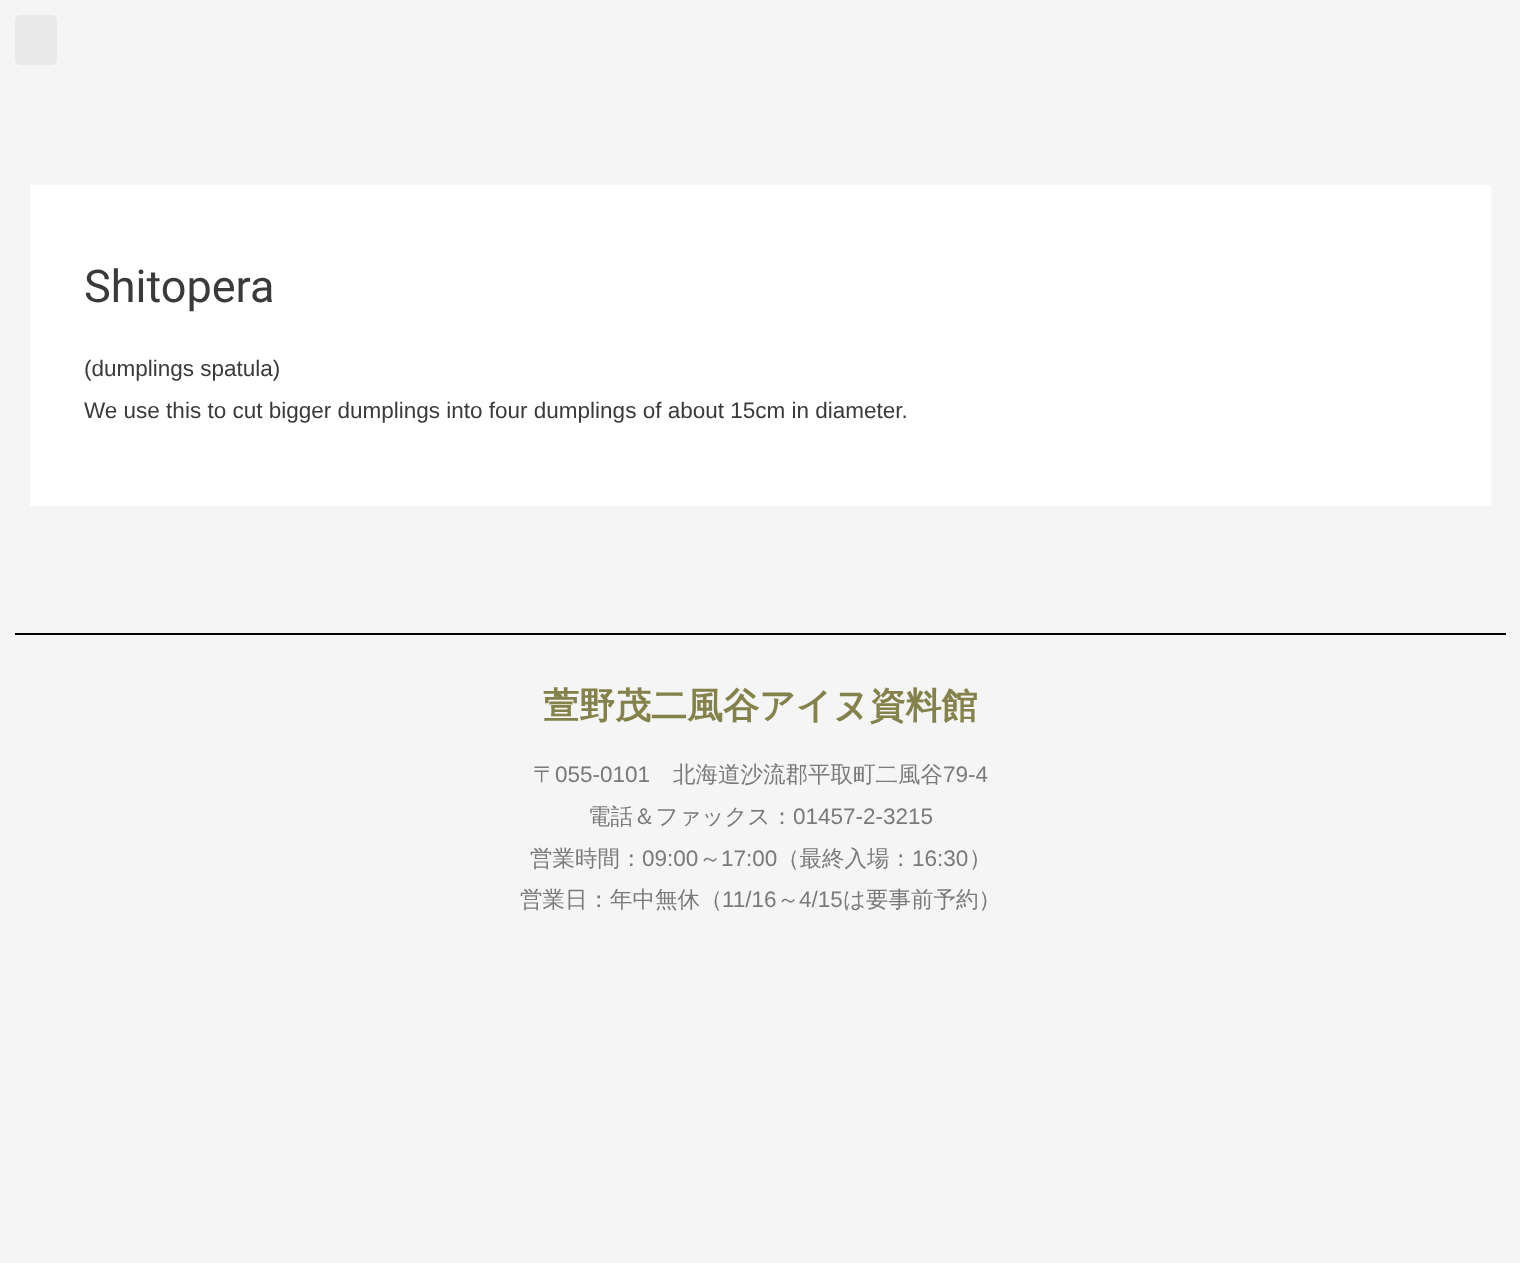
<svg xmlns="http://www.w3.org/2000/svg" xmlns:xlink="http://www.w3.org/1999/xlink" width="1520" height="1263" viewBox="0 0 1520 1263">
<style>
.cls-1{font:45px Roboto;fill:#3a3a3a}
.cls-2{font:22.5px Liberation Sans;fill:#3a3a3a}
.cls-3{font:bold 36px WenQuanYi Zen Hei;fill:#84824a}
.cls-4{font:500 22.5px WenQuanYi Zen Hei;fill:#7a7a7a}
.cls-5{font:22.5px Liberation Sans;fill:#7a7a7a}
</style>
<rect width="100%" height="100%" fill="#f5f5f5"/>
<rect fill="#e9e9e9" x="15" y="15" width="42" height="50" rx="5"/>
<rect fill="#ffffff" x="30" y="185" width="1461" height="321"/>
<rect fill="#000000" x="15" y="633" width="1491" height="2"/>
<text class="cls-1" x="84" y="302">Shitopera</text>
<text class="cls-2"><tspan x="84" y="376">(dumplings spatula)</tspan><tspan x="84" y="418">We use this to cut bigger dumplings into four dumplings of about 15cm in diameter.</tspan></text>
<text class="cls-3" x="543" y="718">萱野茂二風谷アイヌ資料館</text>
<text class="cls-4" x="533" y="782">〒</text>
<text class="cls-5" x="555" y="782">055-0101</text>
<text class="cls-4" x="673" y="782">北海道沙流郡平取町二風谷</text>
<text class="cls-5" x="943" y="782">79-4</text>
<text class="cls-4" x="588" y="824">電話＆ファックス：</text>
<text class="cls-5" x="793" y="824">01457-2-3215</text>
<text class="cls-4" x="530" y="866">営業時間：</text>
<text class="cls-5" x="642" y="866">09:00</text>
<text class="cls-4" x="699" y="866">～</text>
<text class="cls-5" x="721" y="866">17:00</text>
<text class="cls-4" x="777" y="866">（最終入場：</text>
<text class="cls-5" x="912" y="866">16:30</text>
<text class="cls-4" x="969" y="866">）</text>
<text class="cls-4" x="520" y="907">営業日：年中無休（</text>
<text class="cls-5" x="722" y="907">11/16</text>
<text class="cls-4" x="777" y="907">～</text>
<text class="cls-5" x="799" y="907">4/15</text>
<text class="cls-4" x="843" y="907">は要事前予約）</text>
</svg>
